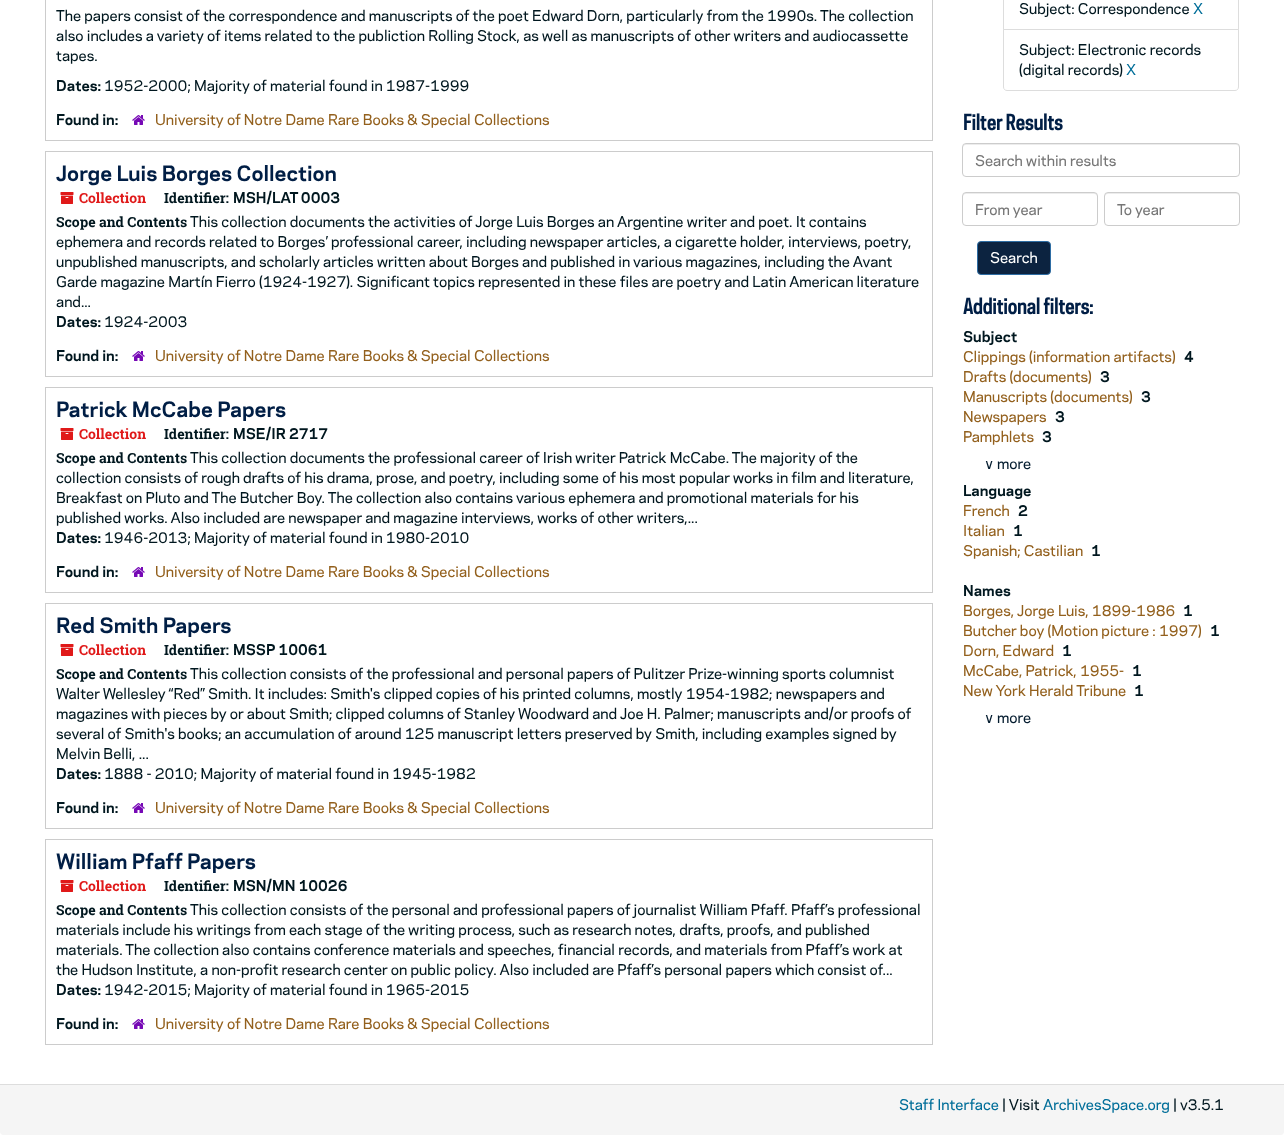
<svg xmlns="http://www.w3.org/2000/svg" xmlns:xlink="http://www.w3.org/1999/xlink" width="1284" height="1135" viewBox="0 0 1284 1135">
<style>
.cls-1{font:14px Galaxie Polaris;fill:#00171f}
.cls-2{font:bold 14px Galaxie Polaris;fill:#00171f}
.cls-3{font:14px Galaxie Polaris;fill:#93601d}
.cls-4{font:bold 20px Galaxie Polaris;fill:#001e45}
.cls-5{font:bold 14px Roboto Slab;fill:#e01919}
.cls-6{font:bold 14px Roboto Slab;fill:#00171f}
.cls-7{font:14px Galaxie Polaris;fill:#006e99}
.cls-8{font:bold 20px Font;fill:#001e45}
.cls-9{font:14px Galaxie Polaris;fill:#767676}
.cls-10{font:14px Galaxie Polaris;fill:#ffffff}
.cls-11{font:14px DejaVu Sans;fill:#041c2f}
.cls-12{font:14px Galaxie Polaris;fill:#041c2f}
</style>
<rect width="100%" height="100%" fill="#ffffff"/>
<rect fill="none" stroke="#cccccc" x="45.5" y="-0.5" width="887" height="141"/>
<image xlink:href="image0.png" x="132" y="115" width="13" height="10"/>
<rect fill="none" stroke="#cccccc" x="45.5" y="151.5" width="887" height="225"/>
<image xlink:href="image1.png" x="60" y="192" width="14" height="12"/>
<image xlink:href="image0.png" x="132" y="351" width="13" height="10"/>
<rect fill="none" stroke="#cccccc" x="45.5" y="387.5" width="887" height="205"/>
<image xlink:href="image1.png" x="60" y="428" width="14" height="12"/>
<image xlink:href="image0.png" x="132" y="567" width="13" height="10"/>
<rect fill="none" stroke="#cccccc" x="45.5" y="603.5" width="887" height="225"/>
<image xlink:href="image1.png" x="60" y="644" width="14" height="12"/>
<image xlink:href="image0.png" x="132" y="803" width="13" height="10"/>
<rect fill="none" stroke="#cccccc" x="45.5" y="839.5" width="887" height="205"/>
<image xlink:href="image1.png" x="60" y="880" width="14" height="12"/>
<image xlink:href="image0.png" x="132" y="1019" width="13" height="10"/>
<rect fill="none" stroke="#dddddd" x="1003.5" y="-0.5" width="235" height="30"/>
<path fill="#ffffff" stroke="#dddddd" d="M1003.5 29.5H1238.5V87C1238.5 89 1237 90.5 1235 90.5H1007C1005 90.5 1003.5 89 1003.5 87Z"/>
<path fill="#ececec" d="M966 145H1236C1238 145 1239 146 1239 148V147C1239 145 1238 144 1236 144H966C964 144 963 145 963 147V148C963 146 964 145 966 145Z"/>
<rect fill="none" stroke="#cccccc" x="962.5" y="143.5" width="277" height="33" rx="3.5"/>
<path fill="#ececec" d="M966 194H1094C1096 194 1097 195 1097 197C1097 195 1097 193 1095 193H965C963 193 963 195 963 197C963 195 964 194 966 194Z"/>
<rect fill="none" stroke="#cccccc" x="962.5" y="192.5" width="135" height="33" rx="3.5"/>
<path fill="#ececec" d="M1108 194H1236C1238 194 1239 195 1239 197C1239 195 1239 193 1237 193H1107C1105 193 1105 195 1105 197C1105 195 1106 194 1108 194Z"/>
<rect fill="none" stroke="#cccccc" x="1104.5" y="192.5" width="135" height="33" rx="3.5"/>
<rect fill="#0c2340" stroke="#2e6da4" x="977.5" y="241.5" width="73" height="33" rx="3.5"/>
<path fill="#f5f5f5" d="M0 1084H1284V1132C1284 1133.5 1282.5 1135 1281 1135H3C1.5 1135 0 1133.5 0 1132Z"/>
<rect fill="#dddddd" x="0" y="1084" width="1284" height="1"/>
<text class="cls-1"><tspan x="56" y="21">The papers consist of the correspondence and manuscripts of the poet Edward Dorn, particularly from the 1990s. The collection</tspan><tspan x="56" y="41">also includes a variety of items related to the publiction Rolling Stock, as well as manuscripts of other writers and audiocassette</tspan><tspan x="56" y="61">tapes.</tspan></text>
<text class="cls-2" x="56" y="91">Dates:</text>
<text class="cls-1" x="104" y="91">1952-2000; Majority of material found in 1987-1999</text>
<text class="cls-2" x="56" y="125">Found in:</text>
<text class="cls-3" x="155" y="125">University of Notre Dame Rare Books &amp; Special Collections</text>
<text class="cls-4" x="56" y="181">Jorge Luis Borges Collection</text>
<text class="cls-5" x="79" y="203">Collection</text>
<text class="cls-6" x="164" y="203">Identifier:</text>
<text class="cls-2" x="233" y="203">MSH/LAT 0003</text>
<text class="cls-6" x="56" y="227">Scope and Contents</text>
<text class="cls-1" x="190" y="227">This collection documents the activities of Jorge Luis Borges an Argentine writer and poet. It contains</text>
<text class="cls-1"><tspan x="56" y="247">ephemera and records related to Borges’ professional career, including newspaper articles, a cigarette holder, interviews, poetry,</tspan><tspan x="56" y="267">unpublished manuscripts, and scholarly articles written about Borges and published in various magazines, including the Avant</tspan><tspan x="56" y="287">Garde magazine Martín Fierro (1924-1927). Significant topics represented in these files are poetry and Latin American literature</tspan><tspan x="56" y="307">and...</tspan></text>
<text class="cls-2" x="56" y="327">Dates:</text>
<text class="cls-1" x="104" y="327">1924-2003</text>
<text class="cls-2" x="56" y="361">Found in:</text>
<text class="cls-3" x="155" y="361">University of Notre Dame Rare Books &amp; Special Collections</text>
<text class="cls-4" x="56" y="417">Patrick McCabe Papers</text>
<text class="cls-5" x="79" y="439">Collection</text>
<text class="cls-6" x="164" y="439">Identifier:</text>
<text class="cls-2" x="233" y="439">MSE/IR 2717</text>
<text class="cls-6" x="56" y="463">Scope and Contents</text>
<text class="cls-1" x="190" y="463">This collection documents the professional career of Irish writer Patrick McCabe. The majority of the</text>
<text class="cls-1"><tspan x="56" y="483">collection consists of rough drafts of his drama, prose, and poetry, including some of his most popular works in film and literature,</tspan><tspan x="56" y="503">Breakfast on Pluto and The Butcher Boy. The collection also contains various ephemera and promotional materials for his</tspan><tspan x="56" y="523">published works. Also included are newspaper and magazine interviews, works of other writers,...</tspan></text>
<text class="cls-2" x="56" y="543">Dates:</text>
<text class="cls-1" x="104" y="543">1946-2013; Majority of material found in 1980-2010</text>
<text class="cls-2" x="56" y="577">Found in:</text>
<text class="cls-3" x="155" y="577">University of Notre Dame Rare Books &amp; Special Collections</text>
<text class="cls-4" x="56" y="633">Red Smith Papers</text>
<text class="cls-5" x="79" y="655">Collection</text>
<text class="cls-6" x="164" y="655">Identifier:</text>
<text class="cls-2" x="233" y="655">MSSP 10061</text>
<text class="cls-6" x="56" y="679">Scope and Contents</text>
<text class="cls-1" x="190" y="679">This collection consists of the professional and personal papers of Pulitzer Prize-winning sports columnist</text>
<text class="cls-1"><tspan x="56" y="699">Walter Wellesley “Red” Smith. It includes: Smith's clipped copies of his printed columns, mostly 1954-1982; newspapers and</tspan><tspan x="56" y="719">magazines with pieces by or about Smith; clipped columns of Stanley Woodward and Joe H. Palmer; manuscripts and/or proofs of</tspan><tspan x="56" y="739">several of Smith's books; an accumulation of around 125 manuscript letters preserved by Smith, including examples signed by</tspan><tspan x="56" y="759">Melvin Belli, ...</tspan></text>
<text class="cls-2" x="56" y="779">Dates:</text>
<text class="cls-1" x="104" y="779">1888 - 2010; Majority of material found in 1945-1982</text>
<text class="cls-2" x="56" y="813">Found in:</text>
<text class="cls-3" x="155" y="813">University of Notre Dame Rare Books &amp; Special Collections</text>
<text class="cls-4" x="56" y="869">William Pfaff Papers</text>
<text class="cls-5" x="79" y="891">Collection</text>
<text class="cls-6" x="164" y="891">Identifier:</text>
<text class="cls-2" x="233" y="891">MSN/MN 10026</text>
<text class="cls-6" x="56" y="915">Scope and Contents</text>
<text class="cls-1" x="190" y="915">This collection consists of the personal and professional papers of journalist William Pfaff. Pfaff’s professional</text>
<text class="cls-1"><tspan x="56" y="935">materials include his writings from each stage of the writing process, such as research notes, drafts, proofs, and published</tspan><tspan x="56" y="955">materials. The collection also contains conference materials and speeches, financial records, and materials from Pfaff’s work at</tspan><tspan x="56" y="975">the Hudson Institute, a non-profit research center on public policy. Also included are Pfaff’s personal papers which consist of...</tspan></text>
<text class="cls-2" x="56" y="995">Dates:</text>
<text class="cls-1" x="104" y="995">1942-2015; Majority of material found in 1965-2015</text>
<text class="cls-2" x="56" y="1029">Found in:</text>
<text class="cls-3" x="155" y="1029">University of Notre Dame Rare Books &amp; Special Collections</text>
<text class="cls-1" x="1019" y="14">Subject: Correspondence</text>
<text class="cls-7" x="1193" y="14">X</text>
<text class="cls-1"><tspan x="1019" y="55">Subject: Electronic records</tspan><tspan x="1019" y="75">(digital records)</tspan></text>
<text class="cls-7" x="1126" y="75">X</text>
<text class="cls-8" x="963" y="130">Filter Results</text>
<text class="cls-9" x="975" y="166">Search within results</text>
<text class="cls-9" x="975" y="215">From year</text>
<text class="cls-9" x="1117" y="215">To year</text>
<text class="cls-10" x="990" y="263">Search</text>
<text class="cls-8" x="963" y="314">Additional filters:</text>
<text class="cls-2" x="963" y="342">Subject</text>
<text class="cls-3" x="963" y="362">Clippings (information artifacts)</text>
<text class="cls-2" x="1184" y="362">4</text>
<text class="cls-3" x="963" y="382">Drafts (documents)</text>
<text class="cls-2" x="1100" y="382">3</text>
<text class="cls-3" x="963" y="402">Manuscripts (documents)</text>
<text class="cls-2" x="1141" y="402">3</text>
<text class="cls-3" x="963" y="422">Newspapers</text>
<text class="cls-2" x="1055" y="422">3</text>
<text class="cls-3" x="963" y="442">Pamphlets</text>
<text class="cls-2" x="1042" y="442">3</text>
<text class="cls-11" x="984" y="469">∨</text>
<text class="cls-12" x="997" y="469">more</text>
<text class="cls-2" x="963" y="496">Language</text>
<text class="cls-3" x="963" y="516">French</text>
<text class="cls-2" x="1018" y="516">2</text>
<text class="cls-3" x="963" y="536">Italian</text>
<text class="cls-2" x="1013" y="536">1</text>
<text class="cls-3" x="963" y="556">Spanish; Castilian</text>
<text class="cls-2" x="1091" y="556">1</text>
<text class="cls-2" x="963" y="596">Names</text>
<text class="cls-3" x="963" y="616">Borges, Jorge Luis, 1899-1986</text>
<text class="cls-2" x="1183" y="616">1</text>
<text class="cls-3" x="963" y="636">Butcher boy (Motion picture : 1997)</text>
<text class="cls-2" x="1210" y="636">1</text>
<text class="cls-3" x="963" y="656">Dorn, Edward</text>
<text class="cls-2" x="1062" y="656">1</text>
<text class="cls-3" x="963" y="676">McCabe, Patrick, 1955-</text>
<text class="cls-2" x="1132" y="676">1</text>
<text class="cls-3" x="963" y="696">New York Herald Tribune</text>
<text class="cls-2" x="1134" y="696">1</text>
<text class="cls-11" x="984" y="723">∨</text>
<text class="cls-12" x="997" y="723">more</text>
<text class="cls-7" x="899" y="1110">Staff Interface</text>
<text class="cls-1" x="1002" y="1110">| Visit</text>
<text class="cls-7" x="1043" y="1110">ArchivesSpace.org</text>
<text class="cls-1" x="1173" y="1110">| v3.5.1</text>
</svg>
